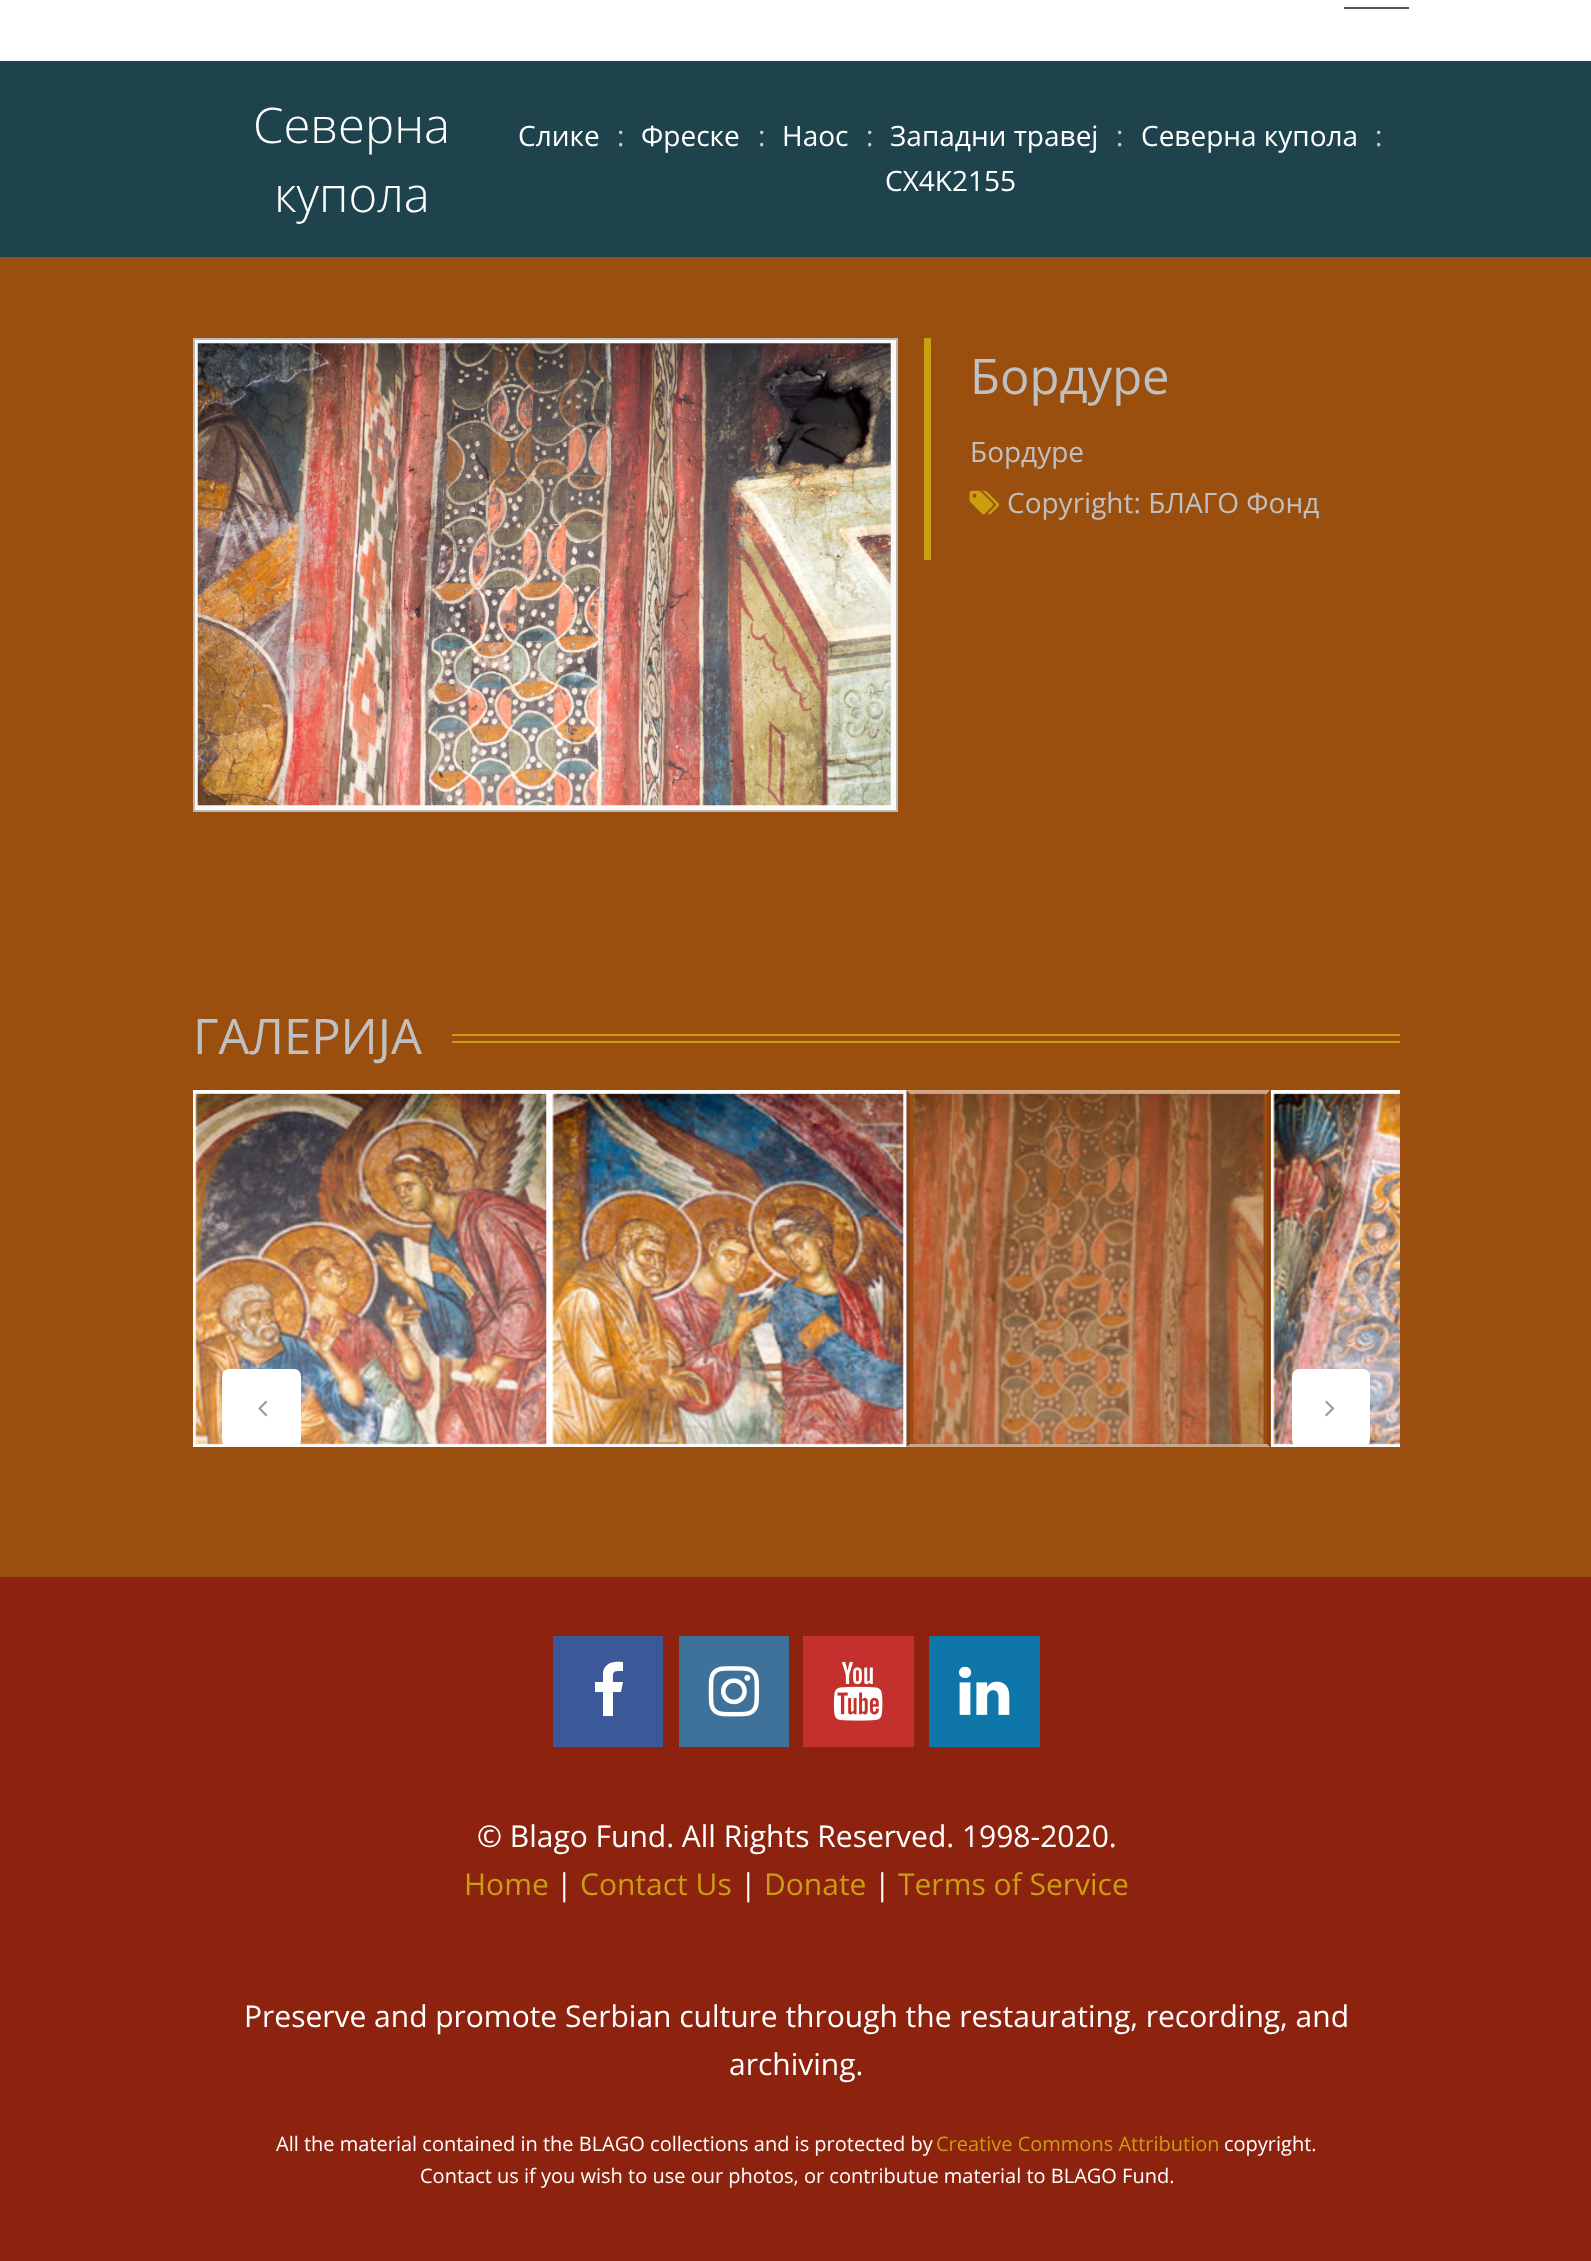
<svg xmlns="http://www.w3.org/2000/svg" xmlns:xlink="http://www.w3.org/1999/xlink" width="1591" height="2261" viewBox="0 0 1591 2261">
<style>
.cls-1{font:300 49px Open Sans;fill:#ffffff}
.cls-2{font:28px Open Sans;fill:#ffffff}
.cls-3{font:28px Open Sans;fill:#cccccc}
.cls-4{font:49px Open Sans;fill:#c0c0c0}
.cls-5{font:28px Open Sans;fill:#c0c0c0}
.cls-6{font:30px Open Sans;fill:#ffffff}
.cls-7{font:30px Open Sans;fill:#c99e10}
.cls-8{font:20px Open Sans;fill:#ffffff}
.cls-9{font:20px Open Sans;fill:#c99e10}
</style>
<defs>
<clipPath id="clip1"><rect x="193" y="1090" width="1207" height="357"/></clipPath>
</defs>
<rect width="100%" height="100%" fill="#ffffff"/>
<rect fill="#555555" x="1344" y="7" width="65" height="2"/>
<rect fill="#1e434c" x="0" y="61" width="1591" height="196"/>
<rect fill="#9b4f0f" x="0" y="257" width="1591" height="1320"/>
<rect fill="#fafafa" stroke="#bbbbbb" stroke-width="2" x="194" y="339" width="703" height="472"/>
<image xlink:href="image0.png" x="197" y="343" width="694" height="463"/>
<rect fill="#c99e10" x="924" y="338" width="7" height="222"/>
<image xlink:href="image1.png" x="969" y="490" width="31" height="25"/>
<rect fill="#c99e10" x="452" y="1034" width="948" height="2"/>
<rect fill="#c99e10" x="452" y="1041" width="948" height="2"/>
<rect fill="none" stroke="#ffffff" stroke-width="4" x="195" y="1092" width="353" height="353"/>
<image xlink:href="image2.png" x="195" y="1093" width="352" height="352"/>
<rect fill="none" stroke="#ffffff" stroke-width="4" x="552" y="1092" width="353" height="353"/>
<image xlink:href="image3.png" x="552" y="1093" width="352" height="352"/>
<path fill="#cda787" d="M906 1090H1270L1267 1094H910Z"/>
<path fill="#894121" d="M1270 1090V1447L1267 1444V1094Z"/>
<path fill="#cda787" d="M1270 1447H906L910 1444H1267Z"/>
<path fill="#773333" fill-opacity="0.5" d="M906 1447V1090L910 1094V1444Z"/>
<image xlink:href="image4.png" x="913" y="1093" width="351" height="352"/>
<g clip-path="url(#clip1)">
<rect fill="none" stroke="#ffffff" stroke-width="4" x="1273" y="1092" width="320" height="353"/>
</g>
<image xlink:href="image5.png" x="1273" y="1093" width="127" height="352"/>
<rect fill="#ffffff" x="222" y="1369" width="79" height="78" rx="7"/>
<image xlink:href="image6.png" x="258" y="1400" width="10" height="17"/>
<rect fill="#ffffff" x="1292" y="1369" width="78" height="78" rx="7"/>
<image xlink:href="image7.png" x="1325" y="1400" width="10" height="17"/>
<rect fill="#8d230f" x="0" y="1577" width="1591" height="684"/>
<rect fill="#3b5998" x="553" y="1636" width="110" height="111"/>
<path fill="#ffffff" d="M623 1662V1671C612 1671 613 1671 613 1682H623L621 1692H613V1716H603V1692H595V1682H603V1672C605 1662 615 1661 623 1662Z"/>
<rect fill="#3f729b" x="679" y="1636" width="110" height="111"/>
<image xlink:href="image8.png" x="708" y="1666" width="52" height="51"/>
<rect fill="#c4302b" x="803" y="1636" width="111" height="111"/>
<image xlink:href="image9.png" x="833" y="1661" width="50" height="60"/>
<rect fill="#0e76a8" x="929" y="1636" width="111" height="111"/>
<image xlink:href="image10.png" x="959" y="1666" width="51" height="49"/>
<text class="cls-1" x="253" y="143">Северна</text>
<text class="cls-1" x="274" y="212">купола</text>
<text class="cls-2" x="518" y="146">Слике</text>
<text class="cls-3" x="617" y="146">:</text>
<text class="cls-2" x="641" y="146">Фреске</text>
<text class="cls-3" x="758" y="146">:</text>
<text class="cls-2" x="782" y="146">Наос</text>
<text class="cls-3" x="866" y="146">:</text>
<text class="cls-2" x="890" y="146">Западни травеј</text>
<text class="cls-3" x="1116" y="146">:</text>
<text class="cls-2" x="1141" y="146">Северна купола</text>
<text class="cls-3" x="1375" y="146">:</text>
<text class="cls-2" x="885" y="191">CX4K2155</text>
<text class="cls-4" x="970" y="394">Бордуре</text>
<text class="cls-5" x="970" y="462">Бордуре</text>
<text class="cls-5" x="1007" y="513">Copyright: БЛАГО Фонд</text>
<text class="cls-4" x="193" y="1054">ГАЛЕРИЈА</text>
<text class="cls-6" x="477" y="1847">© Blago Fund. All Rights Reserved. 1998-2020.</text>
<text class="cls-7" x="464" y="1895">Home</text>
<text class="cls-6" x="556" y="1895">|</text>
<text class="cls-7" x="580" y="1895">Contact Us</text>
<text class="cls-6" x="740" y="1895">|</text>
<text class="cls-7" x="764" y="1895">Donate</text>
<text class="cls-6" x="874" y="1895">|</text>
<text class="cls-7" x="898" y="1895">Terms of Service</text>
<text class="cls-6" x="244" y="2027" word-spacing="-0.1">Preserve and promote Serbian culture through the restaurating, recording, and</text>
<text class="cls-6" x="729" y="2075">archiving.</text>
<text class="cls-8" x="276" y="2151">All the material contained in the BLAGO collections and is protected by</text>
<text class="cls-9" x="936" y="2151">Creative Commons Attribution</text>
<text class="cls-8" x="1224" y="2151">copyright.</text>
<text class="cls-8" x="420" y="2183">Contact us if you wish to use our photos, or contributue material to BLAGO Fund.</text>
</svg>
